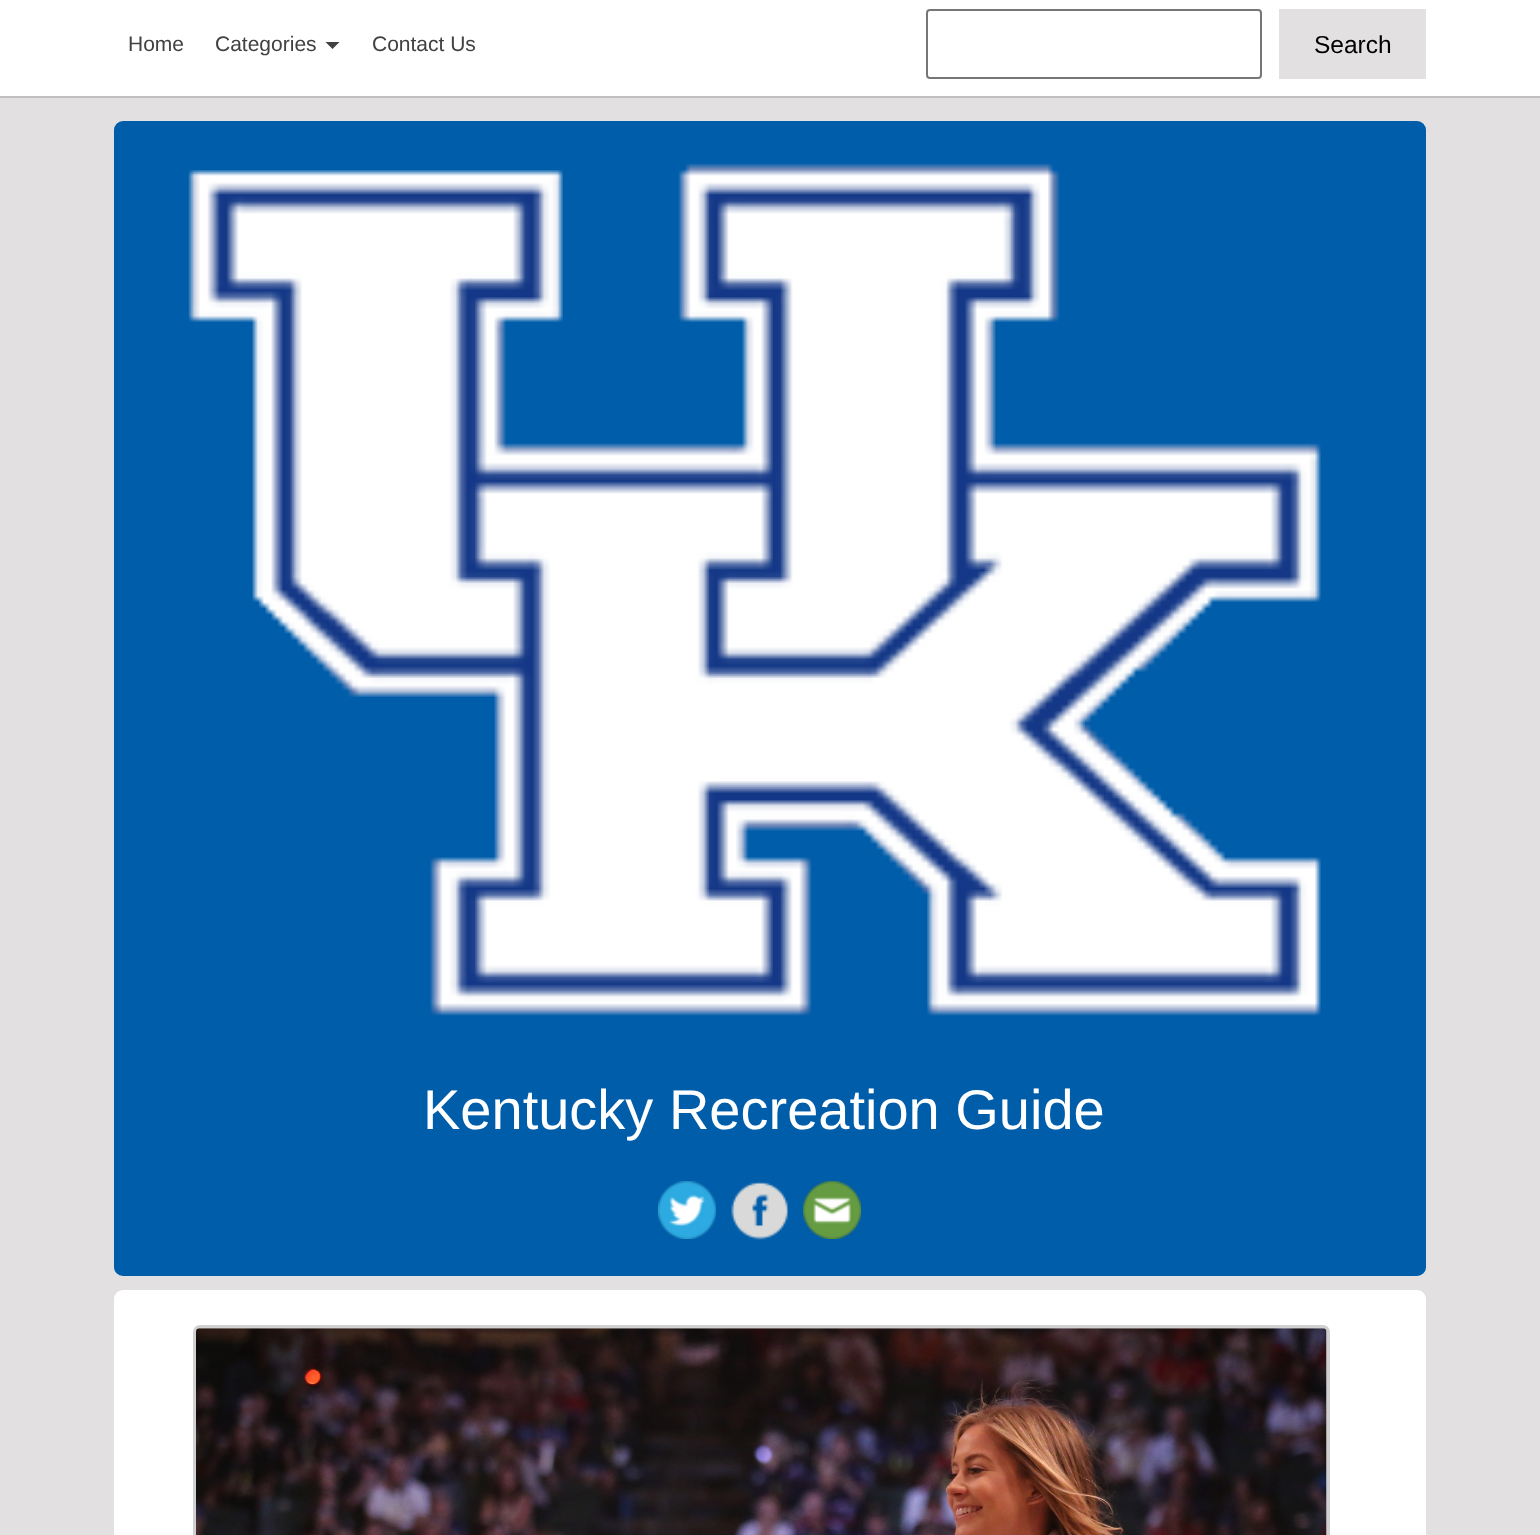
<svg xmlns="http://www.w3.org/2000/svg" xmlns:xlink="http://www.w3.org/1999/xlink" width="1540" height="1535" viewBox="0 0 1540 1535">
<style>
.cls-1{font:21px Liberation Sans;fill:#414141}
.cls-2{font:24.5px Liberation Sans;fill:#000000}
.cls-3{font:56px Liberation Sans;fill:#ffffff}
</style>
<rect width="100%" height="100%" fill="#e2e0e0"/>
<rect fill="#ffffff" x="0" y="0" width="1540" height="96"/>
<rect fill="#c1c0c0" x="0" y="96" width="1540" height="2"/>
<path fill="#414141" d="M325.5 42H339.5L332.5 49Z"/>
<rect fill="none" stroke="#767676" stroke-width="2" x="927" y="10" width="334" height="68" rx="3"/>
<rect fill="#e2e0e0" x="1279" y="9" width="147" height="70"/>
<rect fill="#005daa" x="114" y="121" width="1312" height="1155" rx="9"/>
<image xlink:href="image0.png" x="188" y="163" width="1133" height="853"/>
<image xlink:href="image1.png" x="658" y="1181" width="58" height="58"/>
<image xlink:href="image2.png" x="731" y="1181" width="58" height="59"/>
<image xlink:href="image3.png" x="803" y="1181" width="58" height="58"/>
<rect fill="#ffffff" x="114" y="1290" width="1312" height="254" rx="9"/>
<rect fill="none" stroke="#d0d0d0" stroke-width="4" x="195" y="1327" width="1133" height="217" rx="5"/>
<image xlink:href="image4.png" x="196" y="1328" width="1131" height="207"/>
<text class="cls-1" x="128" y="51">Home</text>
<text class="cls-1" x="215" y="51">Categories</text>
<text class="cls-1" x="372" y="51">Contact Us</text>
<text class="cls-2" x="1314" y="53">Search</text>
<text class="cls-3" x="423" y="1129">Kentucky Recreation Guide</text>
</svg>
